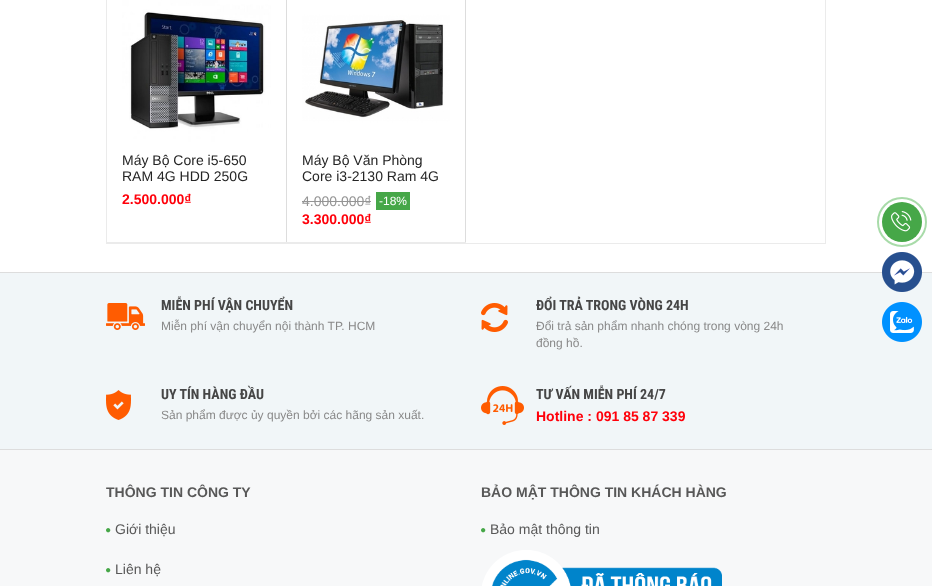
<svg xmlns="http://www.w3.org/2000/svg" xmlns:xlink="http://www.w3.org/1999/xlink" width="932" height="586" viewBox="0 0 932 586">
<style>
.cls-1{font:14px Liberation Sans;fill:#252525}
.cls-2{font:bold 14px Liberation Sans;fill:#ff000a}
.cls-3{font:14px Liberation Sans;fill:#959595}
.cls-4{font:12px Liberation Sans;fill:#ffffff}
.cls-5{font:bold 14px Roboto Condensed;fill:#464646}
.cls-6{font:12px Liberation Sans;fill:#898989}
.cls-7{font:bold 14px Liberation Sans;fill:#585858}
.cls-8{font:14px Liberation Sans;fill:#585858}
</style>
<rect width="100%" height="100%" fill="#ffffff"/>
<rect fill="#ebebeb" x="825" y="0" width="1" height="244"/>
<rect fill="#ebebeb" x="106" y="243" width="720" height="1"/>
<rect fill="#ebebeb" x="106" y="0" width="1" height="244"/>
<rect fill="#dddddd" x="286" y="0" width="1" height="243"/>
<rect fill="#ebebeb" x="107" y="242" width="180" height="1"/>
<image xlink:href="image0.png" x="122" y="0" width="149" height="142"/>
<rect fill="#dddddd" x="465" y="0" width="1" height="243"/>
<rect fill="#ebebeb" x="287" y="242" width="179" height="1"/>
<image xlink:href="image1.png" x="302" y="0" width="148" height="142"/>
<rect fill="#959595" x="302" y="201" width="69" height="1"/>
<rect fill="#46a748" x="376" y="192" width="34" height="18"/>
<rect fill="#f1f6f8" x="0" y="273" width="932" height="176"/>
<rect fill="#dddddd" x="0" y="272" width="932" height="1"/>
<rect fill="#dddddd" x="0" y="449" width="932" height="1"/>
<image xlink:href="image2.png" x="106" y="303" width="39" height="27"/>
<image xlink:href="image3.png" x="481" y="303" width="27" height="29"/>
<image xlink:href="image4.png" x="106" y="390" width="25" height="30"/>
<image xlink:href="image5.png" x="481" y="386" width="43" height="39"/>
<rect fill="#f7f8f9" x="0" y="450" width="932" height="136"/>
<image xlink:href="image6.png" x="106" y="528" width="5" height="5"/>
<image xlink:href="image6.png" x="106" y="568" width="5" height="5"/>
<image xlink:href="image6.png" x="481" y="528" width="5" height="5"/>
<image xlink:href="image7.png" x="482" y="550" width="240" height="36"/>
<circle fill="none" stroke="#a8dba9" stroke-width="2" cx="902" cy="222" r="24"/>
<circle fill="#46a748" cx="902" cy="222" r="20"/>
<image xlink:href="image8.png" x="891" y="211" width="21" height="21"/>
<image xlink:href="image9.png" x="882" y="252" width="40" height="40"/>
<image xlink:href="image10.png" x="882" y="302" width="40" height="40"/>
<text class="cls-1"><tspan x="122" y="165">Máy Bộ Core i5-650</tspan><tspan x="122" y="181">RAM 4G HDD 250G</tspan></text>
<text class="cls-2" x="122" y="204">2.500.000₫</text>
<text class="cls-1"><tspan x="302" y="165">Máy Bộ Văn Phòng</tspan><tspan x="302" y="181">Core i3-2130 Ram 4G</tspan></text>
<text class="cls-3" x="302" y="206">4.000.000₫</text>
<text class="cls-4" x="379" y="205">-18%</text>
<text class="cls-2" x="302" y="224">3.300.000₫</text>
<text class="cls-5" x="161" y="310">MIỄN PHÍ VẬN CHUYỂN</text>
<text class="cls-6" x="161" y="330">Miễn phí vận chuyển nội thành TP. HCM</text>
<text class="cls-5" x="536" y="310">ĐỔI TRẢ TRONG VÒNG 24H</text>
<text class="cls-6"><tspan x="536" y="330">Đổi trả sản phẩm nhanh chóng trong vòng 24h</tspan><tspan x="536" y="347">đồng hồ.</tspan></text>
<text class="cls-5" x="161" y="399">UY TÍN HÀNG ĐẦU</text>
<text class="cls-6" x="161" y="419">Sản phẩm được ủy quyền bởi các hãng sản xuất.</text>
<text class="cls-5" x="536" y="399">TƯ VẤN MIỄN PHÍ 24/7</text>
<text class="cls-2" x="536" y="421">Hotline : 091 85 87 339</text>
<text class="cls-7" x="106" y="497">THÔNG TIN CÔNG TY</text>
<text class="cls-8" x="115" y="534">Giới thiệu</text>
<text class="cls-8" x="115" y="574">Liên hệ</text>
<text class="cls-7" x="481" y="497">BẢO MẬT THÔNG TIN KHÁCH HÀNG</text>
<text class="cls-8" x="490" y="534">Bảo mật thông tin</text>
</svg>
